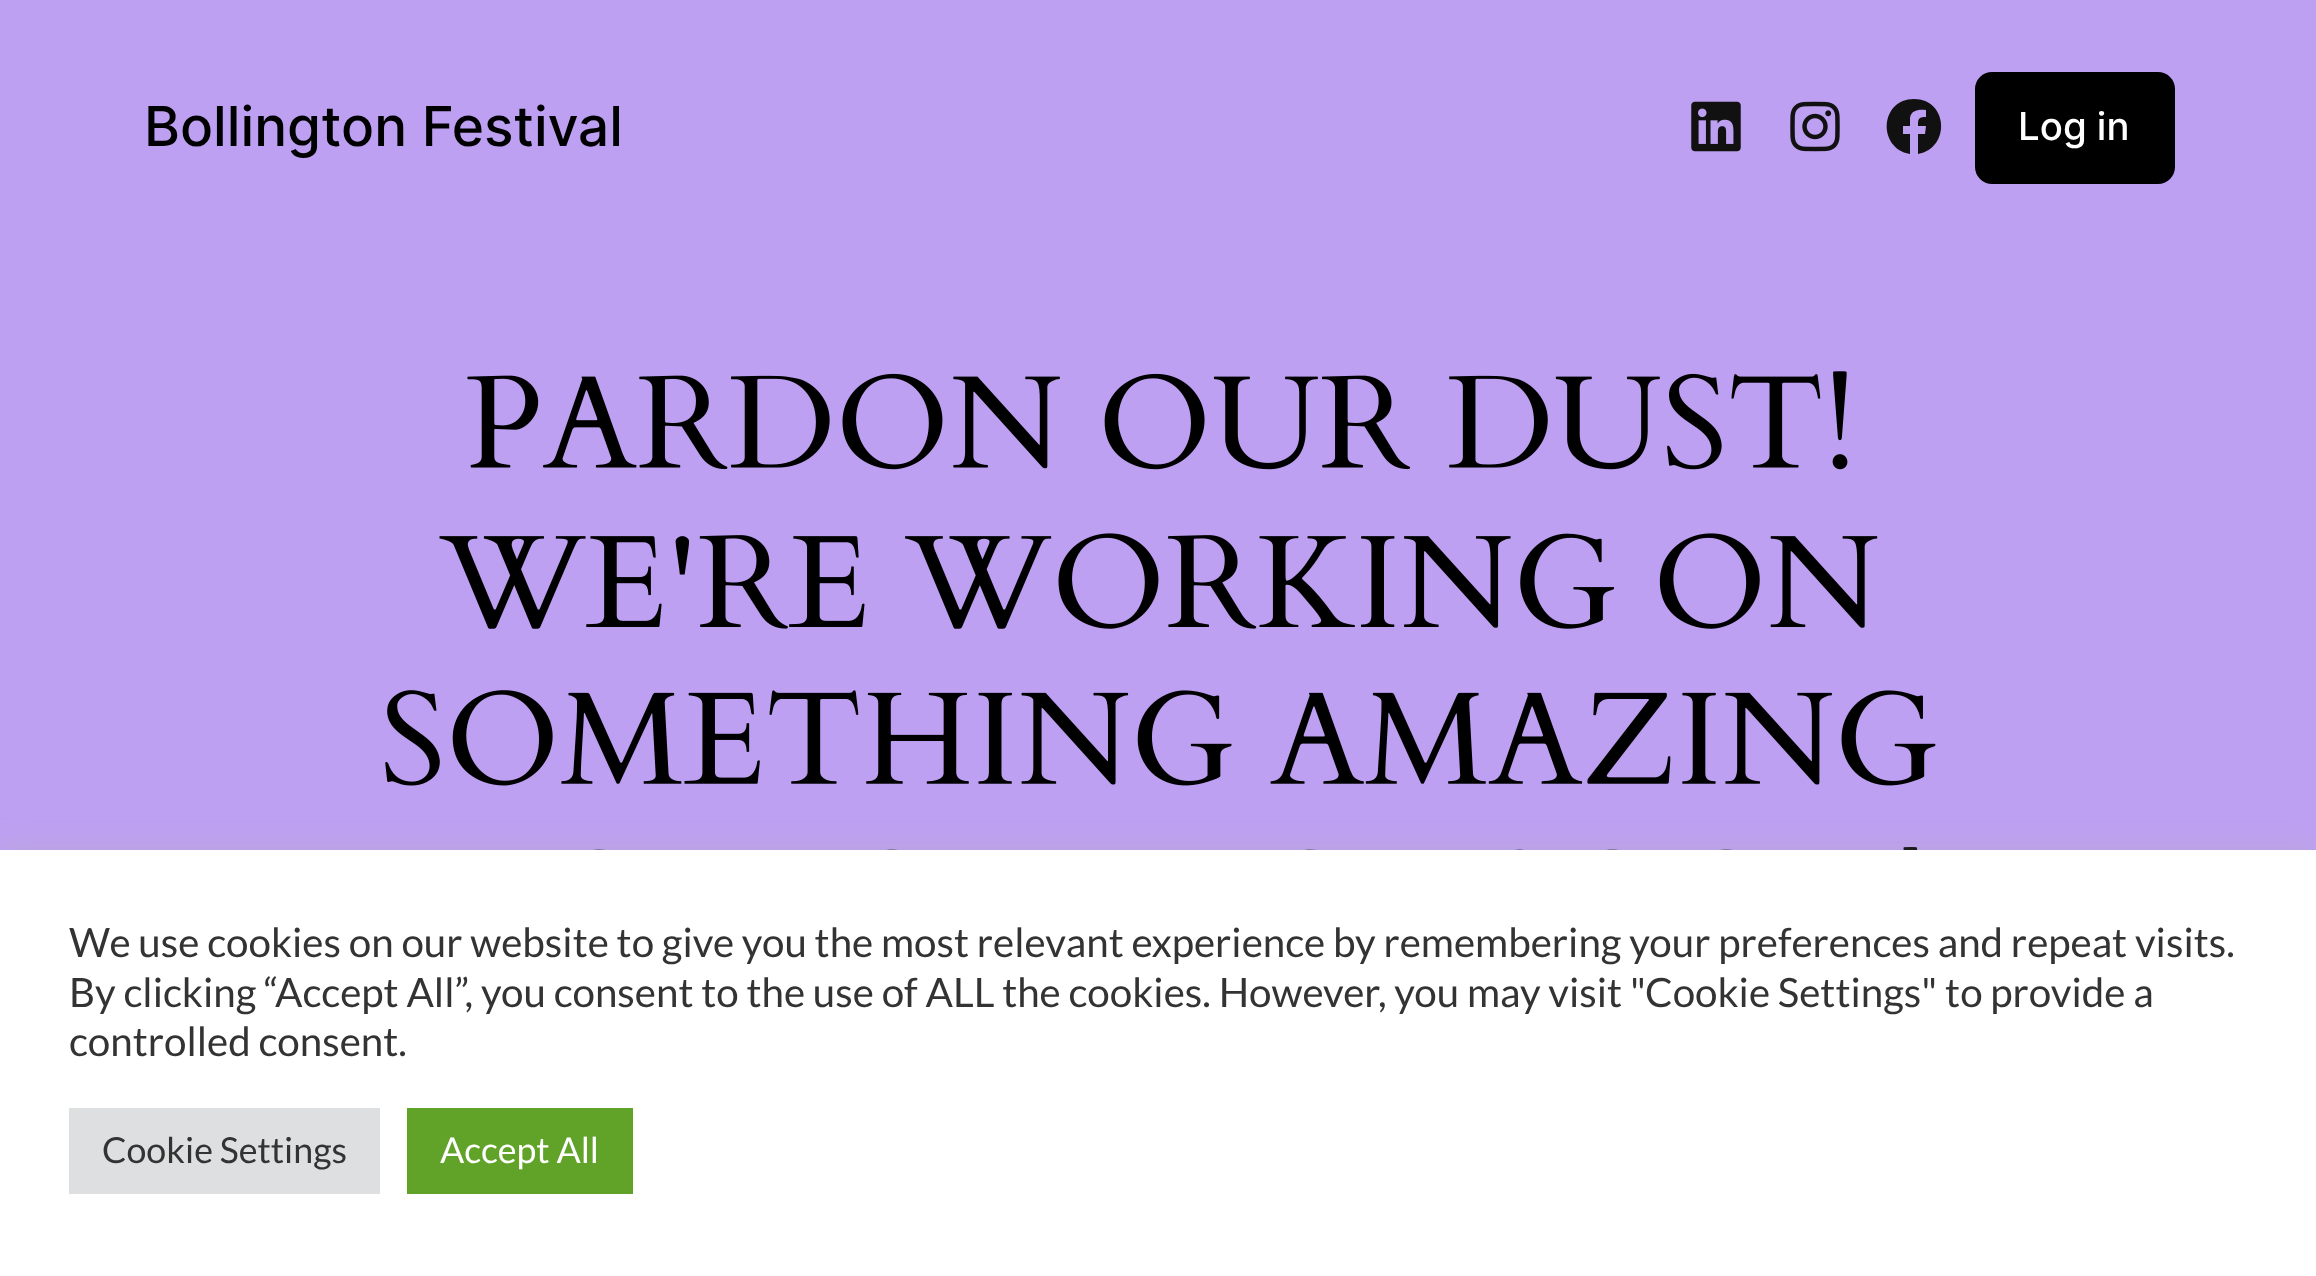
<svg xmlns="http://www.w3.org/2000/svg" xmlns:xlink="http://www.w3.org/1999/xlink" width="2316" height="1276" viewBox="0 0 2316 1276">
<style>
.cls-1{font:500 55px Inter;fill:#000000}
.cls-2{font:500 38.5px Inter;fill:#ffffff}
.cls-3{font:40.33px Lato;fill:#333333}
.cls-4{font:35.75px Lato;fill:#333333}
.cls-5{font:35.75px Lato;fill:#ffffff}
</style>
<rect width="100%" height="100%" fill="#bea0f2"/>
<image xlink:href="image0.png" x="1691" y="101" width="50" height="51"/>
<image xlink:href="image1.png" x="1790" y="101" width="50" height="51"/>
<path fill="#111111" d="M1914 99C1880 99 1877 148 1910 154V134H1903V126H1910V118C1911 110 1919 109 1926 110V117C1918 117 1918 119 1918 126H1926L1925 134H1918V154C1951 148 1948 99 1914 99Z"/>
<rect fill="#000000" x="1975" y="72" width="200" height="112" rx="17"/>
<image xlink:href="image2.png" x="467" y="371" width="1381" height="99"/>
<image xlink:href="image3.png" x="439" y="533" width="1439" height="96"/>
<image xlink:href="image4.png" x="385" y="690" width="1551" height="96"/>
<image xlink:href="image5.png" x="593" y="847" width="1325" height="3"/>
<rect fill="#acabab" fill-opacity="0.3" filter="blur(14px)" x="0" y="847" width="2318" height="426"/>
<rect fill="#ffffff" x="0" y="850" width="2316" height="426"/>
<rect fill="#dedfe0" x="69" y="1108" width="311" height="86"/>
<rect fill="#61a229" x="407" y="1108" width="226" height="86"/>
<text class="cls-1" x="144" y="146">Bollington Festival</text>
<text class="cls-2" x="2018" y="140">Log in</text>
<text class="cls-3"><tspan x="69" y="957">We use cookies on our website to give you the most relevant experience by remembering your preferences and repeat visits.</tspan><tspan x="69" y="1007">By clicking “Accept All”, you consent to the use of ALL the cookies. However, you may visit "Cookie Settings" to provide a</tspan><tspan x="69" y="1056">controlled consent.</tspan></text>
<text class="cls-4" x="102" y="1163">Cookie Settings</text>
<text class="cls-5" x="440" y="1163">Accept All</text>
</svg>
